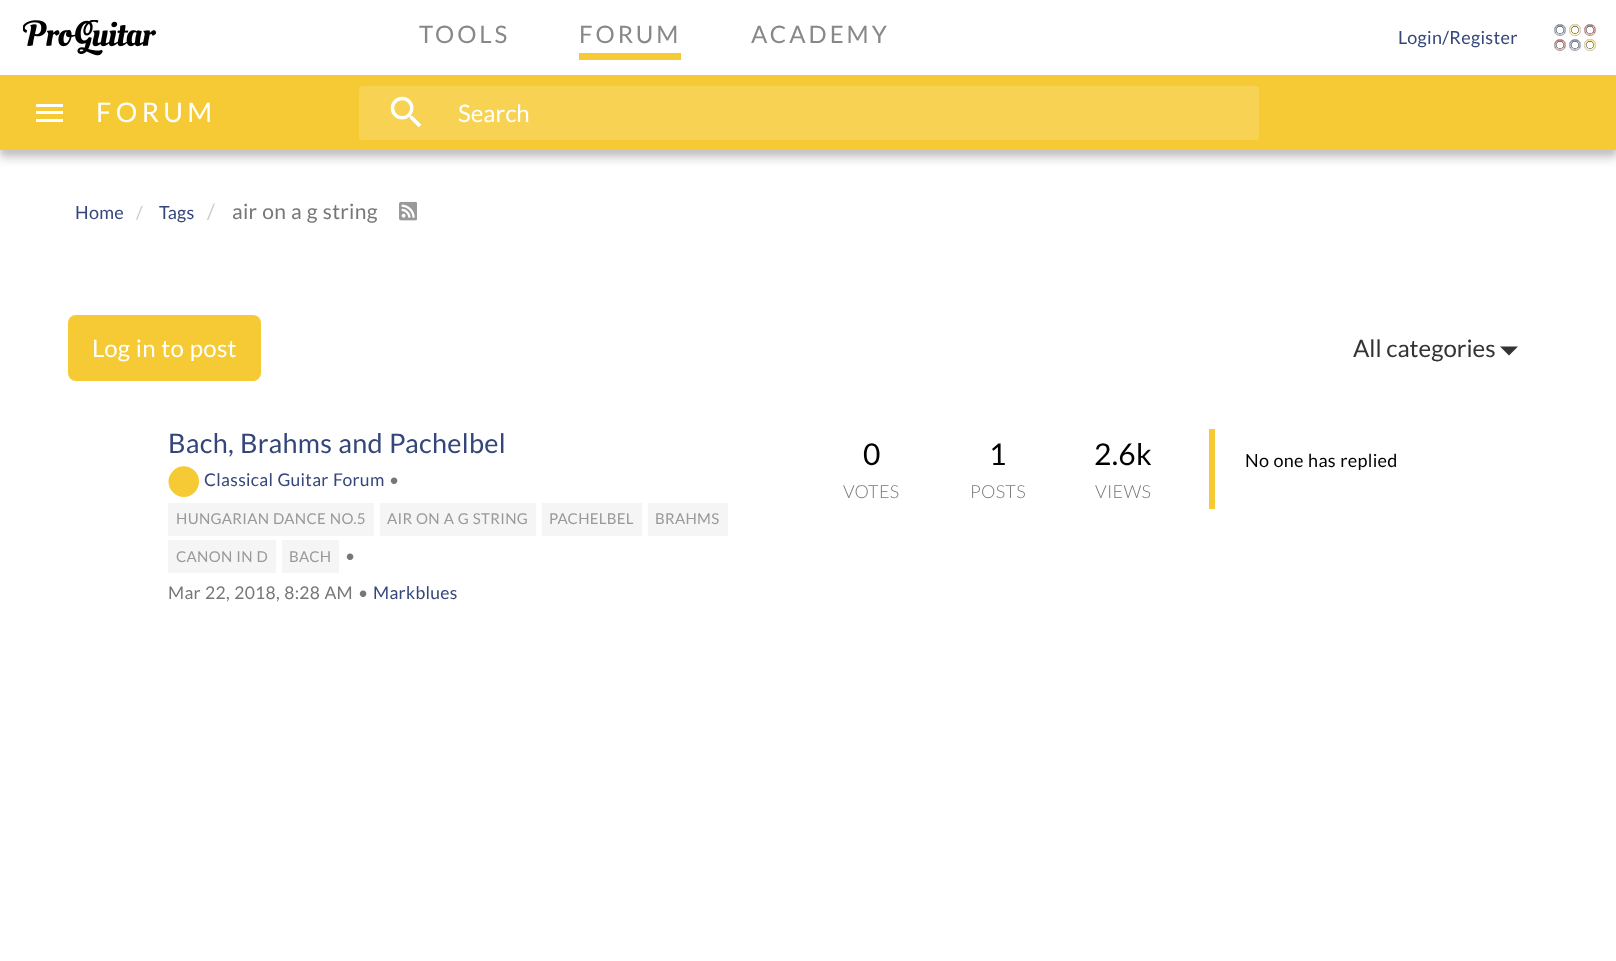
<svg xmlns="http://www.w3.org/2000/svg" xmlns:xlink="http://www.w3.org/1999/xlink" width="1616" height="961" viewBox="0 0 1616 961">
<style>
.cls-1{font:24px Lato;letter-spacing:3px;fill:#888888}
.cls-2{font:18px Lato;letter-spacing:0.3px;fill:#35477a}
.cls-3{font:27px Lato;letter-spacing:4.5px;fill:#ffffff}
.cls-4{font:24px Lato;fill:#ffffff}
.cls-5{font:18px Lato;letter-spacing:0.3px;fill:#cccccc}
.cls-6{font:21px Lato;letter-spacing:0.3px;fill:#cccccc}
.cls-7{font:21px Lato;letter-spacing:0.3px;fill:#777777}
.cls-8{font:24px Lato;letter-spacing:0.3px;fill:#ffffff}
.cls-9{font:24px Lato;fill:#333333}
.cls-10{font:27px Lato;letter-spacing:0.3px;fill:#35477a}
.cls-11{font:17.5px Lato;letter-spacing:0.3px;fill:#35477a}
.cls-12{font:17.5px Lato;letter-spacing:0.3px;fill:#777777}
.cls-13{font:15px Lato;letter-spacing:0.3px;fill:#999999}
.cls-14{font:30px Lato;letter-spacing:0.3px;fill:#000000}
.cls-15{font:300 18px Lato;letter-spacing:0.3px;fill:#777777}
.cls-16{font:18px Lato;letter-spacing:0.3px;fill:#000000}
</style>
<rect width="100%" height="100%" fill="#ffffff"/>
<image xlink:href="image0.png" x="23" y="20" width="133" height="36"/>
<rect fill="#f5ca35" x="579" y="53" width="102" height="7"/>
<image xlink:href="image1.png" x="1554" y="24" width="12" height="12"/>
<image xlink:href="image2.png" x="1569" y="24" width="12" height="12"/>
<image xlink:href="image3.png" x="1584" y="24" width="12" height="12"/>
<image xlink:href="image4.png" x="1554" y="39" width="12" height="12"/>
<image xlink:href="image5.png" x="1569" y="39" width="12" height="12"/>
<image xlink:href="image2.png" x="1584" y="39" width="12" height="12"/>
<rect fill="#000000" fill-opacity="0.16" filter="blur(4.5px)" x="0" y="84" width="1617" height="75"/>
<rect fill="#000000" fill-opacity="0.08" filter="blur(2px)" x="0" y="80" width="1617" height="75"/>
<rect fill="#f5ca35" x="0" y="75" width="1616" height="75"/>
<rect fill="#ffffff" x="36" y="104" width="27" height="3"/>
<rect fill="#ffffff" x="36" y="111" width="27" height="3"/>
<rect fill="#ffffff" x="36" y="119" width="27" height="3"/>
<rect fill="#f7d253" x="359" y="86" width="900" height="54" rx="3"/>
<image xlink:href="image6.png" x="390" y="96" width="32" height="32"/>
<image xlink:href="image7.png" x="399" y="201" width="18" height="20"/>
<rect fill="#f5ca35" x="68" y="315" width="193" height="66" rx="8"/>
<path fill="#333333" d="M1500 346.5H1518L1509 355.5Z"/>
<path fill="#f5ca35" d="M173 471C183 460.5 200.5 469 199 483C198.5 487 197 490 194.5 492.5C184.5 502.5 167.5 494.5 168.5 480C169 476.5 170.5 473.5 173 471Z"/>
<rect fill="#f5f5f5" x="168" y="503" width="206" height="33"/>
<rect fill="#f5f5f5" x="380" y="503" width="156" height="33"/>
<rect fill="#f5f5f5" x="542" y="503" width="100" height="33"/>
<rect fill="#f5f5f5" x="648" y="503" width="80" height="33"/>
<rect fill="#f5f5f5" x="168" y="540" width="108" height="33"/>
<rect fill="#f5f5f5" x="282" y="540" width="57" height="33"/>
<rect fill="#f5ca35" x="1209" y="429" width="6" height="80"/>
<text class="cls-1" x="419" y="43">TOOLS</text>
<text class="cls-1" x="579" y="43">FORUM</text>
<text class="cls-1" x="751" y="43">ACADEMY</text>
<text class="cls-2" x="1398" y="44">Login/Register</text>
<text class="cls-3" x="96" y="122">FORUM</text>
<text class="cls-4" x="458" y="122">Search</text>
<text class="cls-2" x="75" y="219">Home</text>
<text class="cls-5" x="136" y="219">/</text>
<text class="cls-2" x="159" y="219">Tags</text>
<text class="cls-6" x="207" y="219">/</text>
<text class="cls-7" x="232" y="219" word-spacing="0.5">air on a g string</text>
<text class="cls-8" x="92" y="357" word-spacing="0.5">Log in to post</text>
<text class="cls-9" x="1353" y="357">All categories</text>
<text class="cls-10" x="168" y="453" word-spacing="0.5">Bach, Brahms and Pachelbel</text>
<text class="cls-11" x="204" y="486" word-spacing="0.5">Classical Guitar Forum</text>
<text class="cls-12" x="389" y="486">•</text>
<text class="cls-13" x="176" y="524" word-spacing="0.5">HUNGARIAN DANCE NO.5</text>
<text class="cls-13" x="387" y="524" word-spacing="0.5">AIR ON A G STRING</text>
<text class="cls-13" x="549" y="524">PACHELBEL</text>
<text class="cls-13" x="655" y="524">BRAHMS</text>
<text class="cls-13" x="176" y="562" word-spacing="0.5">CANON IN D</text>
<text class="cls-13" x="289" y="562">BACH</text>
<text class="cls-12" x="345" y="562">•</text>
<text class="cls-12" x="168" y="599" word-spacing="0.5">Mar 22, 2018, 8:28 AM</text>
<text class="cls-12" x="358" y="599">•</text>
<text class="cls-11" x="373" y="599">Markblues</text>
<text class="cls-14" x="863" y="465">0</text>
<text class="cls-15" x="843" y="498">VOTES</text>
<text class="cls-14" x="989" y="465">1</text>
<text class="cls-15" x="970" y="498">POSTS</text>
<text class="cls-14" x="1094" y="465">2.6k</text>
<text class="cls-15" x="1095" y="498">VIEWS</text>
<text class="cls-16" x="1245" y="467" word-spacing="0.5">No one has replied</text>
</svg>
